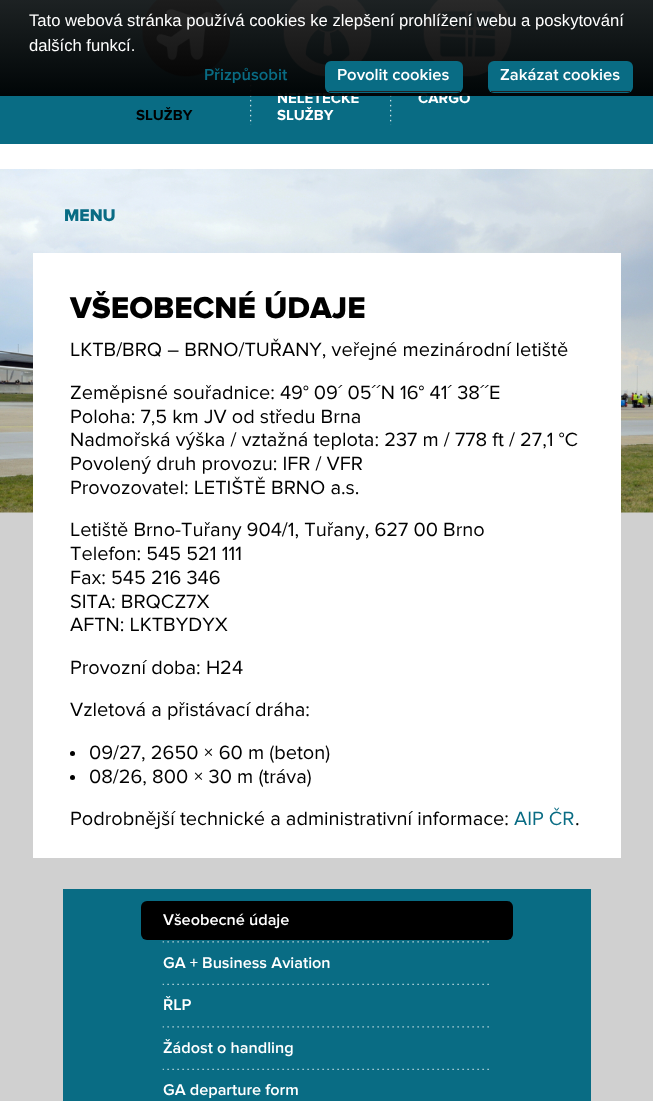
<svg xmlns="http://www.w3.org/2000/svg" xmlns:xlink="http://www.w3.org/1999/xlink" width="653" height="1101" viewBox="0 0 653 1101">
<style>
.cls-1{font:bold 15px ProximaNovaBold;fill:#ffffff}
.cls-2{font:600 16.65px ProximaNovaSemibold;fill:#096c84}
.cls-3{font:600 16.65px ProximaNovaSemibold;fill:#ffffff}
.cls-4{font:16.65px Liberation Sans;fill:#ffffff}
.cls-5{font:bold 15px ProximaNovaBold;fill:#000000}
.cls-6{font:800 17.5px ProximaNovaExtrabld;fill:#096c84}
.cls-7{font:800 31.25px ProximaNovaExtrabld;fill:#000000}
.cls-8{font:20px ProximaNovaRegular;fill:#000000}
.cls-9{font:20px ProximaNovaRegular;fill:#096c84}
.cls-10{font:600 16.25px ProximaNovaSemibold;fill:#ffffff}
</style>
<defs>
<linearGradient id="g1" gradientUnits="userSpaceOnUse" x1="331" y1="0" x2="331" y2="96"><stop offset="0" stop-color="#1e1e1e" stop-opacity="0.95"/><stop offset="1" stop-color="#000000" stop-opacity="0.95"/></linearGradient>
</defs>
<rect width="100%" height="100%" fill="#d0d0d0"/>
<rect fill="#096c84" x="0" y="0" width="653" height="144"/>
<rect fill="#ffffff" x="0" y="144" width="653" height="25"/>
<image xlink:href="image0.png" x="283" y="0" width="89" height="77"/>
<image xlink:href="image1.png" x="250" y="70" width="2" height="55"/>
<image xlink:href="image2.png" x="423" y="0" width="89" height="77"/>
<image xlink:href="image3.png" x="390" y="93" width="2" height="32"/>
<image xlink:href="image4.png" x="142" y="0" width="88" height="77"/>
<image xlink:href="image5.png" x="0" y="169" width="653" height="344"/>
<rect fill="#ffffff" x="33" y="253" width="588" height="605"/>
<circle fill="#000000" cx="72.5" cy="753.5" r="2.5"/>
<circle fill="#000000" cx="72.5" cy="777.5" r="2.5"/>
<rect fill="#096c84" x="63" y="889" width="528" height="212"/>
<rect fill="#000000" x="141" y="901" width="372" height="39" rx="6"/>
<image xlink:href="image6.png" x="162" y="941" width="327" height="2"/>
<image xlink:href="image7.png" x="162" y="983" width="327" height="2"/>
<image xlink:href="image6.png" x="162" y="1026" width="327" height="2"/>
<image xlink:href="image7.png" x="162" y="1068" width="327" height="2"/>
<text class="cls-1"><tspan x="277" y="103">NELETECKÉ</tspan><tspan x="277" y="120">SLUŽBY</tspan></text>
<text class="cls-1" x="418" y="103">CARGO</text>
<rect fill="url(#g1)" x="0" y="0" width="653" height="96"/>
<text class="cls-2" x="204" y="80">Přizpůsobit</text>
<rect fill="#096c84" x="325" y="61" width="138" height="32" rx="6"/>
<text class="cls-3" x="337" y="80">Povolit cookies</text>
<rect fill="#222222" x="329" y="91" width="131" height="1"/>
<rect fill="#096c84" x="488" y="61" width="145" height="32" rx="6"/>
<text class="cls-3" x="500" y="80">Zakázat cookies</text>
<rect fill="#222222" x="491" y="91" width="139" height="1"/>
<text class="cls-4" x="29" y="51">dalších funkcí.</text>
<text class="cls-4" x="29" y="26">Tato webová stránka používá cookies ke zlepšení prohlížení webu a poskytování</text>
<text class="cls-5" x="136" y="120">SLUŽBY</text>
<text class="cls-6" x="64" y="221">MENU</text>
<text class="cls-7" x="70" y="318">VŠEOBECNÉ ÚDAJE</text>
<text class="cls-8" x="70" y="356">LKTB/BRQ – BRNO/TUŘANY, veřejné mezinárodní letiště</text>
<text class="cls-8"><tspan x="70" y="399">Zeměpisné souřadnice: 49° 09´ 05´´N 16° 41´ 38´´E</tspan><tspan x="70" y="423">Poloha: 7,5 km JV od středu Brna</tspan><tspan x="70" y="446">Nadmořská výška / vztažná teplota: 237 m / 778 ft / 27,1 °C</tspan><tspan x="70" y="470">Povolený druh provozu: IFR / VFR</tspan><tspan x="70" y="494">Provozovatel: LETIŠTĚ BRNO a.s.</tspan></text>
<text class="cls-8"><tspan x="70" y="536">Letiště Brno-Tuřany 904/1, Tuřany, 627 00 Brno</tspan><tspan x="70" y="560">Telefon: 545 521 111</tspan><tspan x="70" y="584">Fax: 545 216 346</tspan><tspan x="70" y="608">SITA: BRQCZ7X</tspan><tspan x="70" y="631">AFTN: LKTBYDYX</tspan></text>
<text class="cls-8" x="70" y="674">Provozní doba: H24</text>
<text class="cls-8" x="70" y="716">Vzletová a přistávací dráha:</text>
<text class="cls-8"><tspan x="89" y="759">09/27, 2650 × 60 m (beton)</tspan><tspan x="89" y="783">08/26, 800 × 30 m (tráva)</tspan></text>
<text class="cls-8" x="70" y="825">Podrobnější technické a administrativní informace:</text>
<text class="cls-9" x="514" y="825">AIP ČR</text>
<text class="cls-8" x="575" y="825">.</text>
<text class="cls-10" x="163" y="925">Všeobecné údaje</text>
<text class="cls-10" x="163" y="968">GA + Business Aviation</text>
<text class="cls-10" x="163" y="1010">ŘLP</text>
<text class="cls-10" x="163" y="1053">Žádost o handling</text>
<text class="cls-10" x="163" y="1095">GA departure form</text>
</svg>
